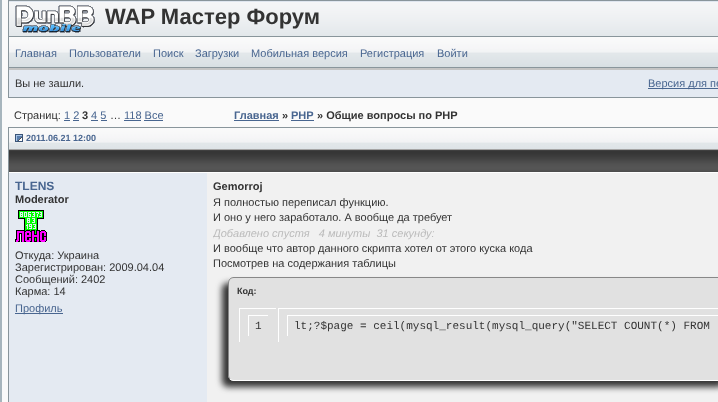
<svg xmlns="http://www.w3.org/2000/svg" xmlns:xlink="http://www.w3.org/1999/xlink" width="718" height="402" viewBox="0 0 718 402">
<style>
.cls-1{font:bold 22px Liberation Sans;fill:#333333}
.cls-2{font:11px Liberation Sans;fill:#496690}
.cls-3{font:11px Liberation Sans;fill:#333333}
.cls-4{font:bold 11px Liberation Sans;fill:#333333}
.cls-5{font:bold 11px Liberation Sans;fill:#496690}
.cls-6{font:bold 9px Liberation Sans;fill:#496690}
.cls-7{font:bold 12px Liberation Sans;fill:#496690}
.cls-8{font:italic 11px Liberation Sans;fill:#bbbbbb}
.cls-9{font:bold 9px Liberation Sans;fill:#333333}
.cls-10{font:11px Liberation Mono;fill:#333333}
</style>
<defs>
<clipPath id="clip1"><rect x="213" y="179" width="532" height="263"/></clipPath>
</defs>
<rect width="100%" height="100%" fill="#fafafa"/>
<rect fill="#a7b5bd" x="0" y="0" width="2" height="402"/>
<rect fill="#e4eaf2" x="9" y="70" width="709" height="27"/>
<rect fill="none" stroke="#89959b" x="8.5" y="0.5" width="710" height="97"/>
<image xlink:href="image0.png" x="9" y="1" width="709" height="35"/>
<image xlink:href="image1.png" x="15" y="5" width="80" height="28"/>
<image xlink:href="image2.png" x="9" y="36" width="709" height="34"/>
<rect fill="#496690" x="648" y="88" width="70" height="1"/>
<rect fill="#496690" x="64" y="120" width="6" height="1"/>
<rect fill="#496690" x="91" y="120" width="7" height="1"/>
<rect fill="#496690" x="124" y="120" width="17" height="1"/>
<rect fill="#496690" x="73" y="120" width="6" height="1"/>
<rect fill="#496690" x="101" y="120" width="6" height="1"/>
<rect fill="#496690" x="144" y="120" width="19" height="1"/>
<rect fill="#496690" x="234" y="120" width="45" height="1"/>
<rect fill="#496690" x="291" y="120" width="23" height="1"/>
<image xlink:href="image3.png" x="9" y="127" width="709" height="22"/>
<rect fill="#89959b" x="8" y="127" width="1" height="275"/>
<image xlink:href="image4.png" x="15" y="134" width="8" height="8"/>
<rect fill="#f1f1f1" x="207" y="173" width="511" height="229"/>
<image xlink:href="image5.png" x="9" y="149" width="709" height="24"/>
<rect fill="#e4eaf2" x="9" y="173" width="198" height="229"/>
<image xlink:href="image6.png" x="15" y="210" width="32" height="32"/>
<rect fill="#496690" x="15" y="313" width="48" height="1"/>
<rect fill="#333333" filter="blur(3px)" x="222" y="283" width="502" height="104" rx="6"/>
<rect fill="#e1e1e1" x="228" y="277" width="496" height="104" rx="6"/>
<path fill="none" stroke="#ffffff" d="M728 279C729 280 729.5 281.5 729.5 283V375C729.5 376.5 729 378 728 379C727 380 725.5 380.5 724 380.5H234C232.5 380.5 231 380 230 379"/>
<path fill="none" stroke="#888888" d="M230 379C229 378 228.5 376.5 228.5 375V283C228.5 281.5 229 280 230 279C231 278 232.5 277.5 234 277.5H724C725.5 277.5 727 278 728 279"/>
<rect fill="#ffffff" x="239" y="308" width="37" height="1"/>
<rect fill="#ffffff" x="239" y="308" width="1" height="34"/>
<rect fill="#ffffff" x="248" y="315" width="20" height="1"/>
<rect fill="#ffffff" x="248" y="315" width="1" height="21"/>
<rect fill="#ffffff" x="278" y="308" width="440" height="1"/>
<rect fill="#ffffff" x="278" y="308" width="1" height="34"/>
<rect fill="#ffffff" x="287" y="315" width="431" height="1"/>
<rect fill="#ffffff" x="287" y="315" width="1" height="21"/>
<text class="cls-1" x="105" y="24">WAP Мастер Форум</text>
<text class="cls-2" x="15" y="57">Главная</text>
<text class="cls-2" x="69" y="57">Пользователи</text>
<text class="cls-2" x="153" y="57">Поиск</text>
<text class="cls-2" x="195" y="57">Загрузки</text>
<text class="cls-2" x="251" y="57">Мобильная версия</text>
<text class="cls-2" x="360" y="57">Регистрация</text>
<text class="cls-2" x="437" y="57">Войти</text>
<text class="cls-3" x="15" y="87">Вы не зашли.</text>
<text class="cls-2" x="648" y="87">Версия для пе</text>
<text class="cls-3" x="14" y="119">Страниц:</text>
<text class="cls-2" x="64" y="119">1 2</text>
<text class="cls-4" x="82" y="119">3</text>
<text class="cls-2" x="91" y="119">4 5</text>
<text class="cls-3" x="110" y="119">…</text>
<text class="cls-2" x="124" y="119">118 Все</text>
<text class="cls-5" x="234" y="119">Главная</text>
<text class="cls-4" x="282" y="119">»</text>
<text class="cls-5" x="291" y="119">PHP</text>
<text class="cls-4" x="317" y="119">» Общие вопросы по PHP</text>
<text class="cls-6" x="26" y="141">2011.06.21 12:00</text>
<text class="cls-7" x="15" y="190">TLENS</text>
<text class="cls-4" x="15" y="203">Moderator</text>
<text class="cls-3"><tspan x="15" y="259">Откуда: Украина</tspan><tspan x="15" y="271">Зарегистрирован: 2009.04.04</tspan><tspan x="15" y="283">Сообщений: 2402</tspan><tspan x="15" y="295">Карма: 14</tspan></text>
<text class="cls-2" x="15" y="312">Профиль</text>
<text class="cls-4" x="213" y="190">Gemorroj</text>
<text class="cls-3"><tspan x="213" y="206">Я полностью переписал функцию.</tspan><tspan x="213" y="221">И оно у него заработало. А вообще да требует</tspan></text>
<g clip-path="url(#clip1)">
<text class="cls-8" xml:space="preserve" x="213" y="237">Добавлено спустя   4 минуты  31 секунду:</text>
</g>
<text class="cls-3"><tspan x="213" y="252">И вообще что автор данного скрипта хотел от этого куска кода</tspan><tspan x="213" y="267">Посмотрев на содержания таблицы</tspan></text>
<text class="cls-9" x="237" y="294">Код:</text>
<text class="cls-10" x="255" y="329">1</text>
<text class="cls-10" x="294" y="329">lt;?$page = ceil(mysql_result(mysql_query("SELECT COUNT(*) FROM</text>
</svg>
